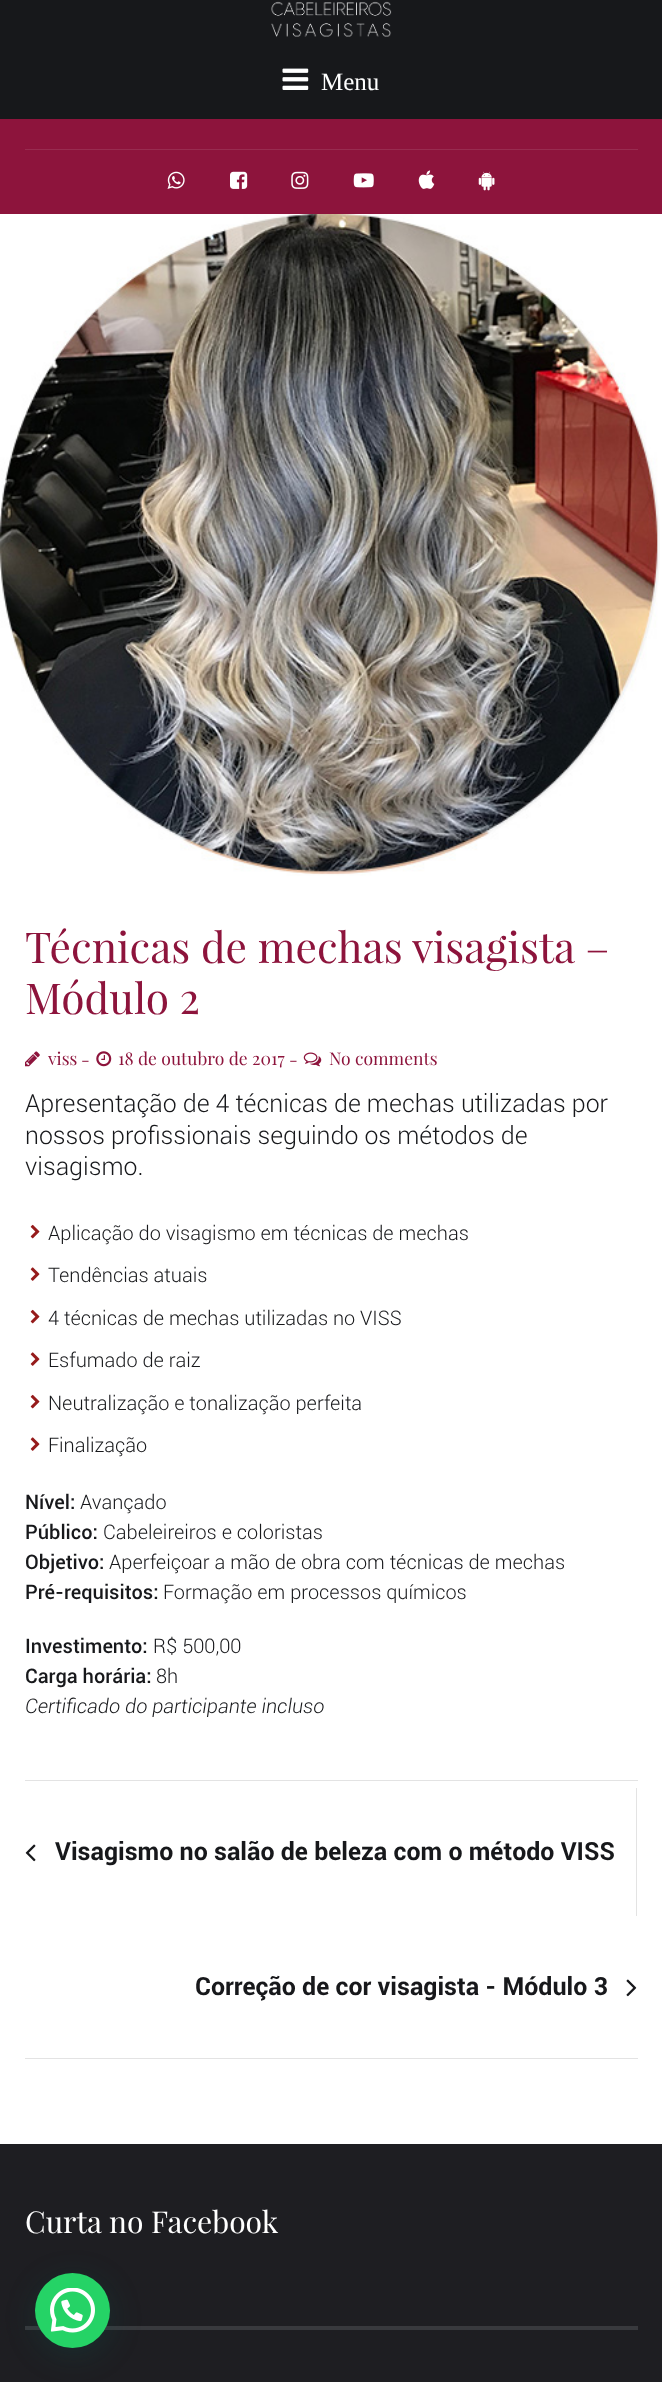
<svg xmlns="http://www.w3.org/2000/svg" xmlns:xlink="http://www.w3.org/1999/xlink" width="662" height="2382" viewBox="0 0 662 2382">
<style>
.cls-1{font:25px Liberation Serif;fill:#ffffff}
.cls-2{font:42.5px Playfair Display;fill:#8d143c}
.cls-3{font:17.5px Playfair Display;fill:#8d143c}
.cls-4{font:300 25px Roboto;fill:#17181b}
.cls-5{font:300 20px Roboto;fill:#17181b}
.cls-6{font:500 20px Roboto;fill:#17181b}
.cls-7{font:italic 300 20px Roboto;fill:#17181b}
.cls-8{font:bold 25px Roboto;fill:#17181b}
.cls-9{font:30px Playfair Display;fill:#ffffff}
</style>
<rect width="100%" height="100%" fill="#ffffff"/>
<rect fill="#17181b" x="0" y="0" width="662" height="119"/>
<image xlink:href="image0.png" x="271" y="1" width="121" height="36"/>
<image xlink:href="image1.png" x="282" y="68" width="27" height="22"/>
<rect fill="#8d143c" x="0" y="119" width="662" height="95"/>
<rect fill="#982c50" x="25" y="149" width="613" height="1"/>
<image xlink:href="image2.png" x="167" y="171" width="18" height="18"/>
<image xlink:href="image3.png" x="230" y="171" width="18" height="18"/>
<image xlink:href="image4.png" x="291" y="171" width="18" height="18"/>
<image xlink:href="image5.png" x="353" y="173" width="21" height="15"/>
<image xlink:href="image6.png" x="418" y="170" width="17" height="19"/>
<image xlink:href="image7.png" x="478" y="171" width="17" height="20"/>
<image xlink:href="image8.png" x="0" y="214" width="660" height="662"/>
<image xlink:href="image9.png" x="25" y="1051" width="15" height="16"/>
<image xlink:href="image10.png" x="96" y="1051" width="16" height="16"/>
<image xlink:href="image11.png" x="303" y="1052" width="19" height="15"/>
<image xlink:href="image12.png" x="30" y="1224" width="10" height="15"/>
<image xlink:href="image13.png" x="30" y="1267" width="10" height="14"/>
<image xlink:href="image12.png" x="30" y="1309" width="10" height="15"/>
<image xlink:href="image13.png" x="30" y="1352" width="10" height="14"/>
<image xlink:href="image12.png" x="30" y="1394" width="10" height="15"/>
<image xlink:href="image13.png" x="30" y="1437" width="10" height="14"/>
<rect fill="#e3e3e3" x="25" y="1780" width="613" height="1"/>
<rect fill="#e3e3e3" x="25" y="2058" width="613" height="1"/>
<rect fill="#e3e3e3" x="636" y="1788" width="1" height="128"/>
<image xlink:href="image14.png" x="25" y="1844" width="11" height="18"/>
<image xlink:href="image15.png" x="626" y="1979" width="11" height="18"/>
<rect fill="#1e1e22" x="0" y="2144" width="662" height="238"/>
<rect fill="#38393d" x="25" y="2326" width="613" height="4"/>
<rect fill="#075e54" fill-opacity="0.24" filter="blur(15px)" x="36" y="2280" width="75" height="75" rx="37.5"/>
<circle fill="#25d366" cx="72.5" cy="2310.5" r="37.5"/>
<image xlink:href="image16.png" x="50" y="2288" width="45" height="45"/>
<text class="cls-1" x="321" y="90">Menu</text>
<text class="cls-2"><tspan x="25" y="963">Técnicas de mechas visagista –</tspan><tspan x="25" y="1014">Módulo 2</tspan></text>
<text class="cls-3" x="48" y="1065">viss</text>
<text class="cls-3" x="81" y="1066">-</text>
<text class="cls-3" x="118" y="1065">18 de outubro de 2017</text>
<text class="cls-3" x="289" y="1066">-</text>
<text class="cls-3" x="329" y="1065">No comments</text>
<text class="cls-4"><tspan x="25" y="1112">Apresentação de 4 técnicas de mechas utilizadas por</tspan><tspan x="25" y="1144">nossos profissionais seguindo os métodos de</tspan><tspan x="25" y="1175">visagismo.</tspan></text>
<text class="cls-5" x="48" y="1240">Aplicação do visagismo em técnicas de mechas</text>
<text class="cls-5" x="48" y="1282">Tendências atuais</text>
<text class="cls-5" x="48" y="1325">4 técnicas de mechas utilizadas no VISS</text>
<text class="cls-5" x="48" y="1367">Esfumado de raiz</text>
<text class="cls-5" x="48" y="1410">Neutralização e tonalização perfeita</text>
<text class="cls-5" x="48" y="1452">Finalização</text>
<text class="cls-6" x="25" y="1509">Nível:</text>
<text class="cls-5" x="80" y="1509">Avançado</text>
<text class="cls-6" x="25" y="1539">Público:</text>
<text class="cls-5" x="103" y="1539">Cabeleireiros e coloristas</text>
<text class="cls-6" x="25" y="1569">Objetivo:</text>
<text class="cls-5" x="109" y="1569">Aperfeiçoar a mão de obra com técnicas de mechas</text>
<text class="cls-6" x="25" y="1599">Pré-requisitos:</text>
<text class="cls-5" x="163" y="1599">Formação em processos químicos</text>
<text class="cls-6" x="25" y="1653">Investimento:</text>
<text class="cls-5" x="153" y="1653">R$ 500,00</text>
<text class="cls-6" x="25" y="1683">Carga horária:</text>
<text class="cls-5" x="156" y="1683">8h</text>
<text class="cls-7" x="25" y="1713">Certificado do participante incluso</text>
<text class="cls-8" x="55" y="1860">Visagismo no salão de beleza com o método VISS</text>
<text class="cls-8" x="195" y="1995">Correção de cor visagista - Módulo 3</text>
<text class="cls-9" x="25" y="2233">Curta no Facebook</text>
</svg>
